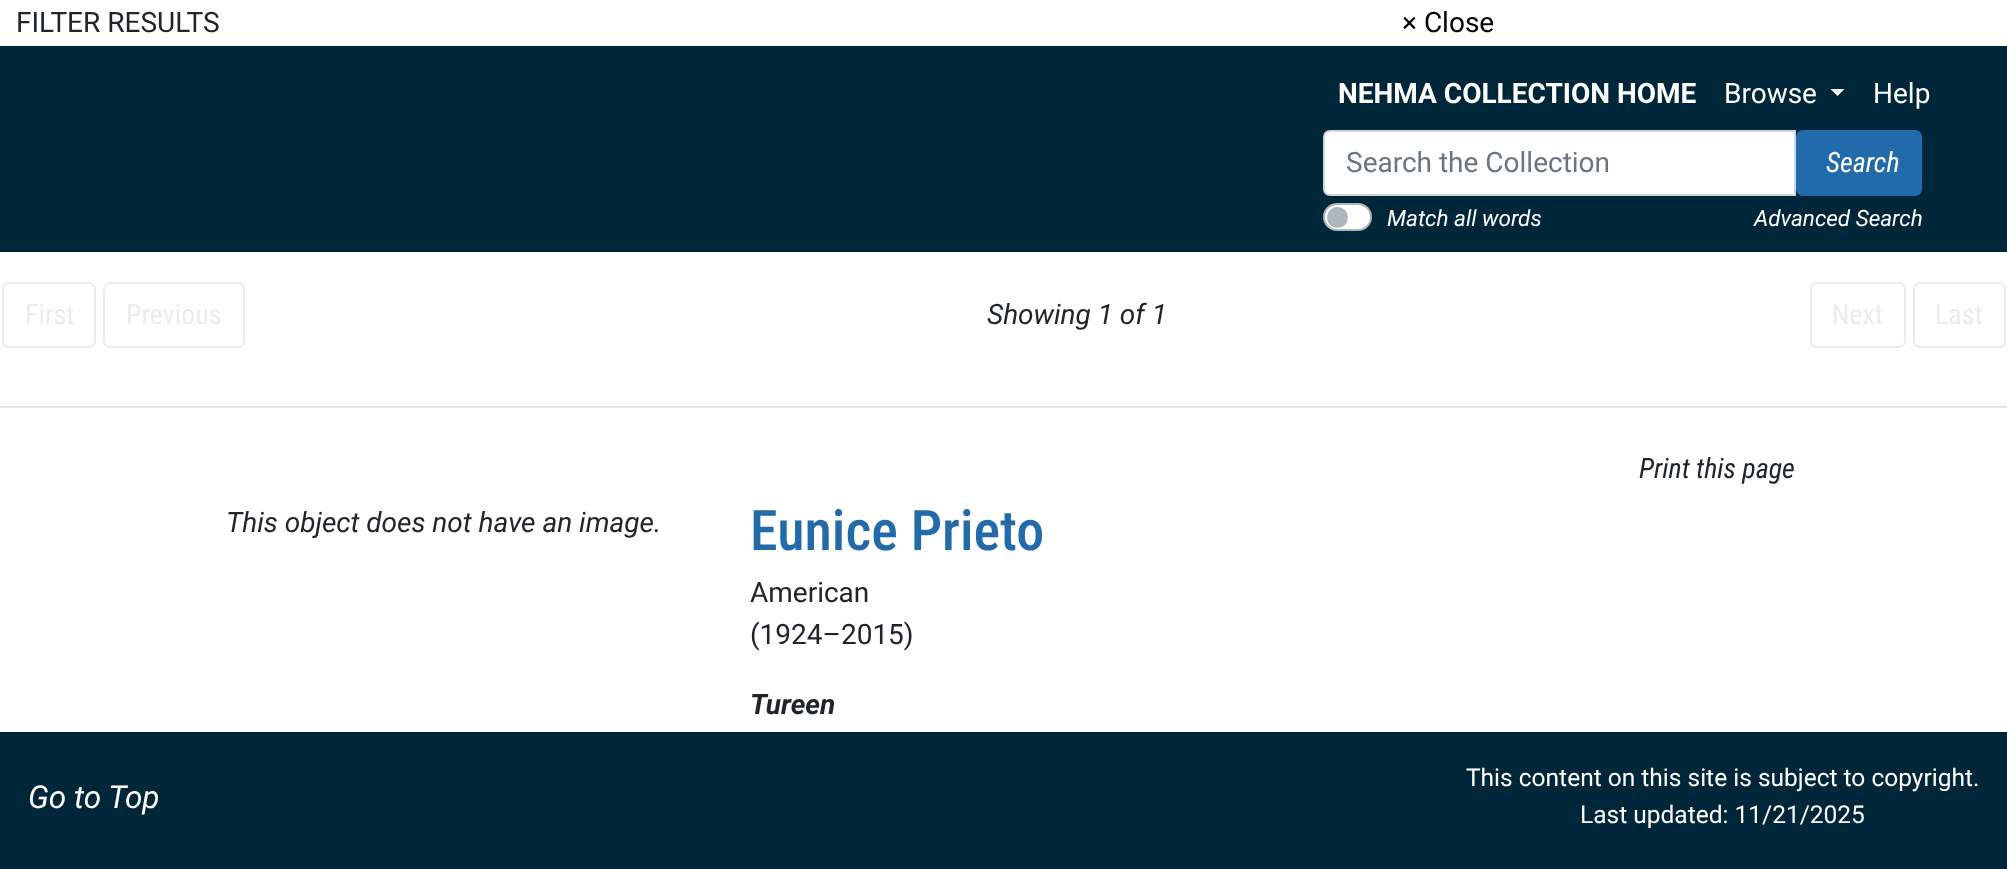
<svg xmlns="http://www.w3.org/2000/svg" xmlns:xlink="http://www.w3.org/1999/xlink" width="2007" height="869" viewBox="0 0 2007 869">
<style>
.cls-1{font:28px Roboto;fill:#212529}
.cls-2{font:28px Roboto;fill:#000000}
.cls-3{font:bold 28px Roboto;fill:#ffffff}
.cls-4{font:28px Roboto;fill:#ffffff}
.cls-5{font:28px Roboto;fill:#6c757d}
.cls-6{font:italic 28px Roboto Condensed;fill:#ffffff}
.cls-7{font:italic 22.5px Roboto;fill:#ffffff}
.cls-8{font:28px Roboto Condensed;fill:#eaecef}
.cls-9{font:italic 28px Roboto;fill:#212529}
.cls-10{font:italic 28px Roboto Condensed;fill:#212529}
.cls-11{font:500 56px Roboto Condensed;fill:#226baa}
.cls-12{font:italic bold 28px Roboto;fill:#212529}
.cls-13{font:italic 31.5px Roboto;fill:#ffffff}
.cls-14{font:24.5px Roboto;fill:#ffffff}
</style>
<rect width="100%" height="100%" fill="#ffffff"/>
<rect fill="#00263a" x="0" y="46" width="2007" height="206"/>
<path fill="#ffffff" d="M1830.5 89H1844.5L1837.5 96Z"/>
<path fill="#ffffff" stroke="#ced4da" stroke-width="2" d="M1330 131H1795V195H1330C1326.5 195 1324 192.5 1324 189V137C1324 133.5 1326.5 131 1330 131Z"/>
<rect fill="#226baa" stroke="#226baa" stroke-width="2" x="1797" y="131" width="124" height="64" rx="6"/>
<rect fill="#ffffff" stroke="#adb5bd" stroke-width="2" x="1324" y="204" width="47" height="26" rx="13"/>
<circle fill="#adb5bd" cx="1337.5" cy="217.5" r="10.5"/>
<rect fill="none" stroke="#eaecef" stroke-width="2" x="3" y="283" width="92" height="64" rx="6"/>
<rect fill="none" stroke="#eaecef" stroke-width="2" x="104" y="283" width="140" height="64" rx="6"/>
<rect fill="none" stroke="#eaecef" stroke-width="2" x="1811" y="283" width="94" height="64" rx="6"/>
<rect fill="none" stroke="#eaecef" stroke-width="2" x="1914" y="283" width="91" height="64" rx="6"/>
<rect fill="#e6e6e6" x="0" y="406" width="2007" height="2"/>
<rect fill="#00263a" x="0" y="732" width="2007" height="137"/>
<text class="cls-1" x="16" y="32">FILTER RESULTS</text>
<text class="cls-2" x="1402" y="32">× Close</text>
<text class="cls-3" x="1338" y="103">NEHMA COLLECTION HOME</text>
<text class="cls-4" x="1724" y="103">Browse</text>
<text class="cls-4" x="1873" y="103">Help</text>
<text class="cls-5" x="1346" y="172">Search the Collection</text>
<text class="cls-6" x="1826" y="172">Search</text>
<text class="cls-7" x="1387" y="226">Match all words</text>
<text class="cls-7" x="1754" y="226">Advanced Search</text>
<text class="cls-8" x="25" y="324">First</text>
<text class="cls-8" x="126" y="324">Previous</text>
<text class="cls-9" x="987" y="324">Showing 1 of 1</text>
<text class="cls-8" x="1832" y="324">Next</text>
<text class="cls-8" x="1935" y="324">Last</text>
<text class="cls-10" x="1639" y="478">Print this page</text>
<text class="cls-9" x="226" y="532">This object does not have an image.</text>
<text class="cls-11" x="750" y="550">Eunice Prieto</text>
<text class="cls-1"><tspan x="750" y="602">American</tspan><tspan x="750" y="644">(1924–2015)</tspan></text>
<text class="cls-12" x="750" y="714">Tureen</text>
<text class="cls-13" x="28" y="808">Go to Top</text>
<text class="cls-14" x="1466" y="786">This content on this site is subject to copyright.</text>
<text class="cls-14" x="1580" y="823">Last updated: 11/21/2025</text>
</svg>
